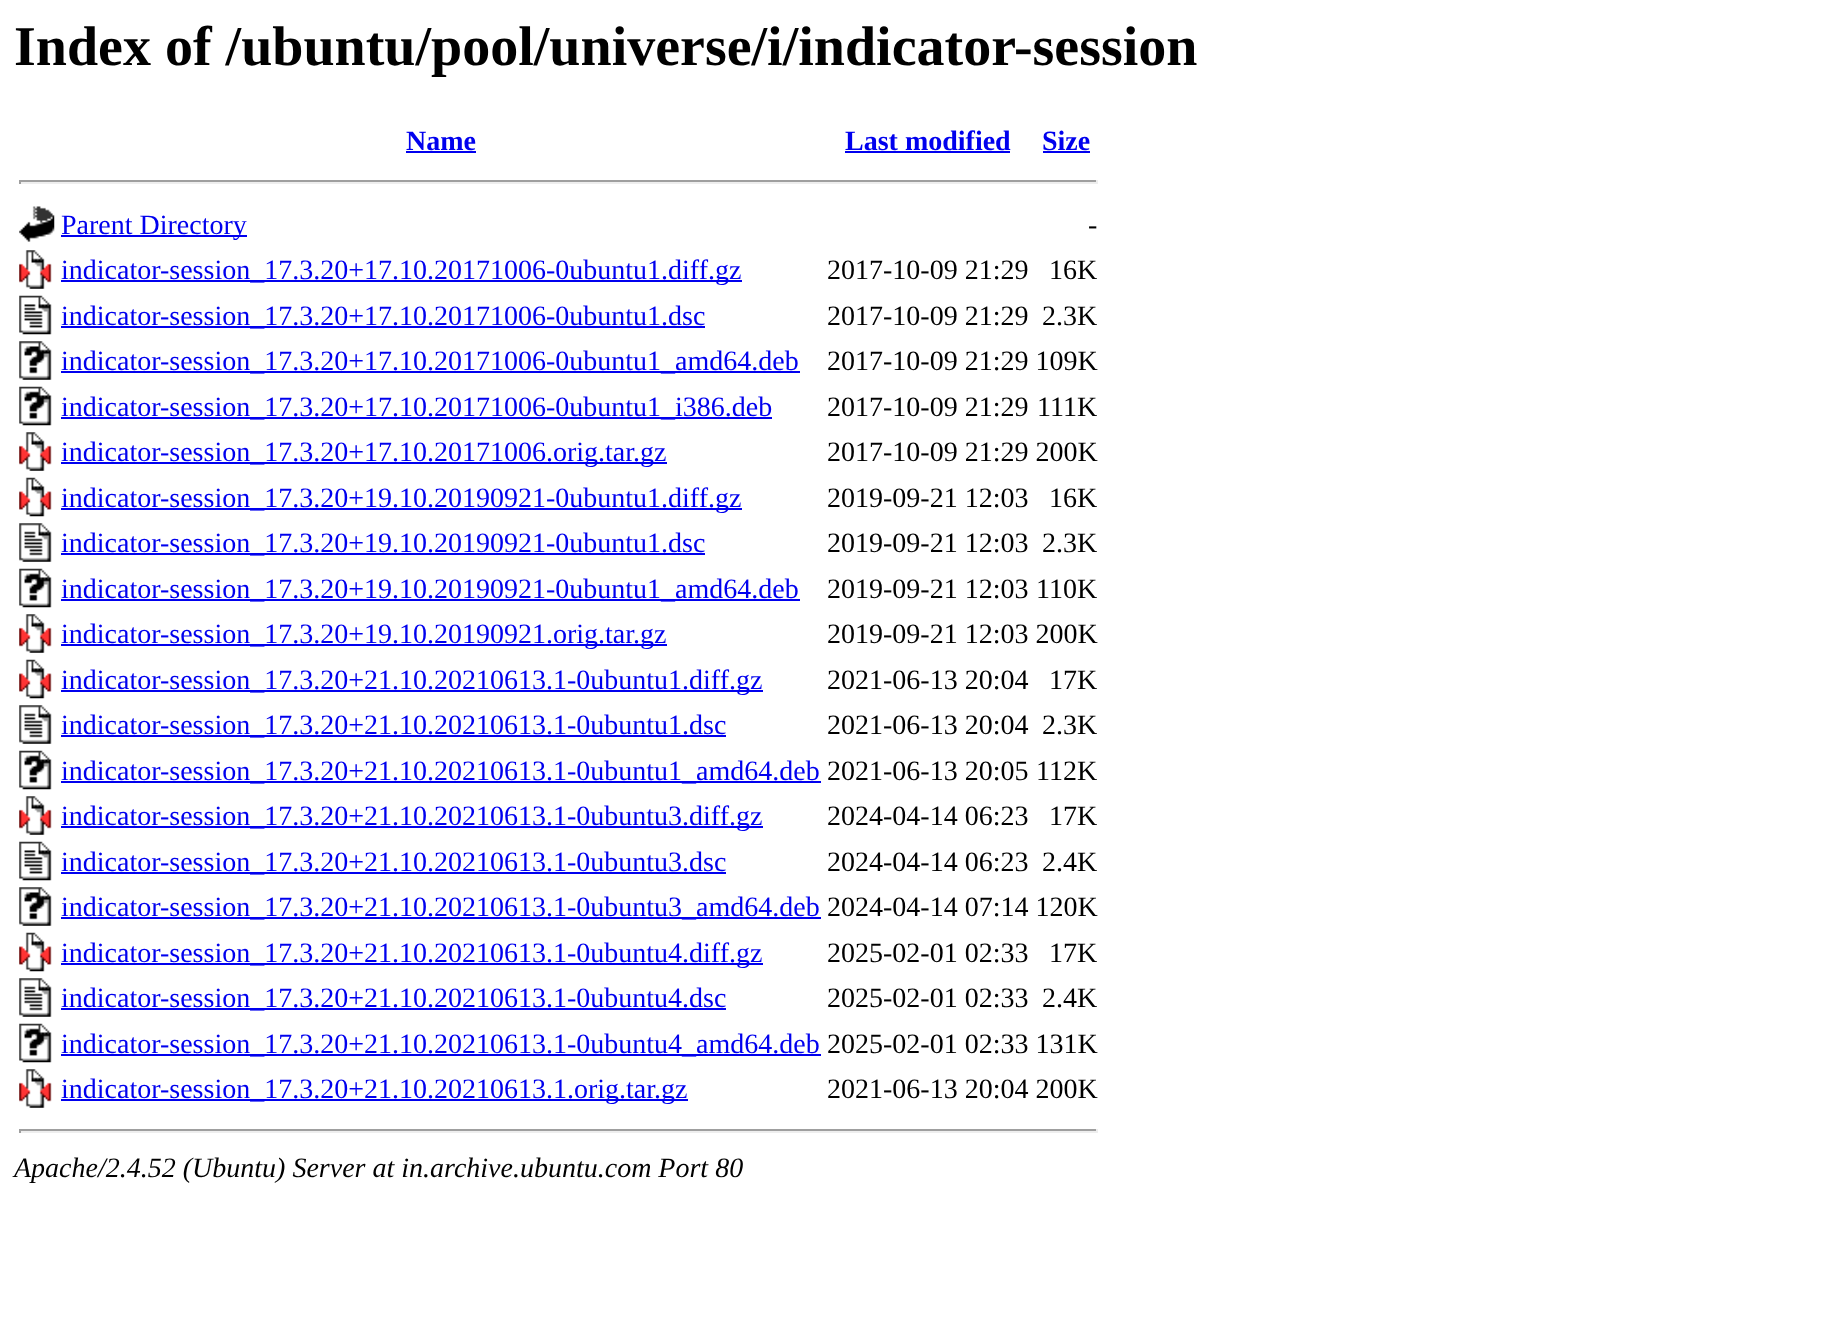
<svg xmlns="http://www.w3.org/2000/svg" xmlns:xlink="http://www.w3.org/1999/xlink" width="1841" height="1319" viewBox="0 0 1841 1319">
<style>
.cls-1{font:bold 56px Liberation Serif;fill:#000000}
.cls-2{font:bold 28px Liberation Serif;fill:#0000ee}
.cls-3{font:28px Liberation Serif;fill:#0000ee}
.cls-4{font:28px Liberation Serif;fill:#000000}
.cls-5{font:italic 28px Liberation Serif;fill:#000000}
</style>
<rect width="100%" height="100%" fill="#ffffff"/>
<rect fill="#0000ee" x="406" y="151" width="70" height="2"/>
<rect fill="#0000ee" x="845" y="151" width="165" height="2"/>
<rect fill="#0000ee" x="1043" y="151" width="47" height="2"/>
<rect fill="#9f9f9f" x="19" y="180" width="1078" height="2"/>
<rect fill="#eeeeee" x="1096" y="180" width="2" height="4"/>
<rect fill="#eeeeee" x="19" y="182" width="1078" height="2"/>
<rect fill="#9f9f9f" x="19" y="180" width="2" height="4"/>
<image xlink:href="image0.png" x="19" y="206" width="36" height="36"/>
<rect fill="#0000ee" x="61" y="235" width="186" height="2"/>
<image xlink:href="image1.png" x="19" y="250" width="33" height="39"/>
<rect fill="#0000ee" x="61" y="280" width="681" height="2"/>
<image xlink:href="image2.png" x="19" y="295" width="33" height="40"/>
<rect fill="#0000ee" x="61" y="326" width="644" height="2"/>
<image xlink:href="image3.png" x="19" y="341" width="33" height="39"/>
<rect fill="#0000ee" x="61" y="371" width="739" height="2"/>
<image xlink:href="image4.png" x="19" y="386" width="33" height="40"/>
<rect fill="#0000ee" x="61" y="417" width="711" height="2"/>
<image xlink:href="image1.png" x="19" y="432" width="33" height="39"/>
<rect fill="#0000ee" x="61" y="462" width="606" height="2"/>
<image xlink:href="image5.png" x="19" y="477" width="33" height="40"/>
<rect fill="#0000ee" x="61" y="508" width="681" height="2"/>
<image xlink:href="image6.png" x="19" y="523" width="33" height="39"/>
<rect fill="#0000ee" x="61" y="553" width="644" height="2"/>
<image xlink:href="image4.png" x="19" y="568" width="33" height="40"/>
<rect fill="#0000ee" x="61" y="599" width="739" height="2"/>
<image xlink:href="image1.png" x="19" y="614" width="33" height="39"/>
<rect fill="#0000ee" x="61" y="644" width="606" height="2"/>
<image xlink:href="image5.png" x="19" y="659" width="33" height="40"/>
<rect fill="#0000ee" x="61" y="690" width="702" height="2"/>
<image xlink:href="image6.png" x="19" y="705" width="33" height="39"/>
<rect fill="#0000ee" x="61" y="735" width="665" height="2"/>
<image xlink:href="image4.png" x="19" y="750" width="33" height="40"/>
<rect fill="#0000ee" x="61" y="781" width="760" height="2"/>
<image xlink:href="image1.png" x="19" y="796" width="33" height="39"/>
<rect fill="#0000ee" x="61" y="826" width="702" height="2"/>
<image xlink:href="image2.png" x="19" y="841" width="33" height="40"/>
<rect fill="#0000ee" x="61" y="872" width="665" height="2"/>
<image xlink:href="image3.png" x="19" y="887" width="33" height="39"/>
<rect fill="#0000ee" x="61" y="917" width="760" height="2"/>
<image xlink:href="image5.png" x="19" y="932" width="33" height="40"/>
<rect fill="#0000ee" x="61" y="963" width="702" height="2"/>
<image xlink:href="image6.png" x="19" y="978" width="33" height="39"/>
<rect fill="#0000ee" x="61" y="1008" width="665" height="2"/>
<image xlink:href="image4.png" x="19" y="1023" width="33" height="40"/>
<rect fill="#0000ee" x="61" y="1054" width="760" height="2"/>
<image xlink:href="image1.png" x="19" y="1069" width="33" height="39"/>
<rect fill="#0000ee" x="61" y="1099" width="627" height="2"/>
<rect fill="#9f9f9f" x="19" y="1129" width="1078" height="2"/>
<rect fill="#eeeeee" x="1096" y="1129" width="2" height="4"/>
<rect fill="#eeeeee" x="19" y="1131" width="1078" height="2"/>
<rect fill="#9f9f9f" x="19" y="1129" width="2" height="4"/>
<text class="cls-1" x="14" y="65">Index of /ubuntu/pool/universe/i/indicator-session</text>
<text class="cls-2" x="406" y="150">Name</text>
<text class="cls-2" x="845" y="150">Last modified</text>
<text class="cls-2" x="1042" y="150">Size</text>
<text class="cls-3" x="61" y="234">Parent Directory</text>
<text class="cls-4" x="1088" y="234">-</text>
<text class="cls-3" x="61" y="279">indicator-session_17.3.20+17.10.20171006-0ubuntu1.diff.gz</text>
<text class="cls-4" x="827" y="279">2017-10-09 21:29</text>
<text class="cls-4" x="1049" y="279">16K</text>
<text class="cls-3" x="61" y="325">indicator-session_17.3.20+17.10.20171006-0ubuntu1.dsc</text>
<text class="cls-4" x="827" y="325">2017-10-09 21:29</text>
<text class="cls-4" x="1042" y="325">2.3K</text>
<text class="cls-3" x="61" y="370">indicator-session_17.3.20+17.10.20171006-0ubuntu1_amd64.deb</text>
<text class="cls-4" x="827" y="370">2017-10-09 21:29 109K</text>
<text class="cls-3" x="61" y="416">indicator-session_17.3.20+17.10.20171006-0ubuntu1_i386.deb</text>
<text class="cls-4" x="827" y="416">2017-10-09 21:29</text>
<text class="cls-4" x="1037" y="416">111K</text>
<text class="cls-3" x="61" y="461">indicator-session_17.3.20+17.10.20171006.orig.tar.gz</text>
<text class="cls-4" x="827" y="461">2017-10-09 21:29 200K</text>
<text class="cls-3" x="61" y="507">indicator-session_17.3.20+19.10.20190921-0ubuntu1.diff.gz</text>
<text class="cls-4" x="827" y="507">2019-09-21 12:03</text>
<text class="cls-4" x="1049" y="507">16K</text>
<text class="cls-3" x="61" y="552">indicator-session_17.3.20+19.10.20190921-0ubuntu1.dsc</text>
<text class="cls-4" x="827" y="552">2019-09-21 12:03</text>
<text class="cls-4" x="1042" y="552">2.3K</text>
<text class="cls-3" x="61" y="598">indicator-session_17.3.20+19.10.20190921-0ubuntu1_amd64.deb</text>
<text class="cls-4" x="827" y="598">2019-09-21 12:03</text>
<text class="cls-4" x="1036" y="598">110K</text>
<text class="cls-3" x="61" y="643">indicator-session_17.3.20+19.10.20190921.orig.tar.gz</text>
<text class="cls-4" x="827" y="643">2019-09-21 12:03 200K</text>
<text class="cls-3" x="61" y="689">indicator-session_17.3.20+21.10.20210613.1-0ubuntu1.diff.gz</text>
<text class="cls-4" x="827" y="689">2021-06-13 20:04</text>
<text class="cls-4" x="1049" y="689">17K</text>
<text class="cls-3" x="61" y="734">indicator-session_17.3.20+21.10.20210613.1-0ubuntu1.dsc</text>
<text class="cls-4" x="827" y="734">2021-06-13 20:04</text>
<text class="cls-4" x="1042" y="734">2.3K</text>
<text class="cls-3" x="61" y="780">indicator-session_17.3.20+21.10.20210613.1-0ubuntu1_amd64.deb</text>
<text class="cls-4" x="827" y="780">2021-06-13 20:05</text>
<text class="cls-4" x="1036" y="780">112K</text>
<text class="cls-3" x="61" y="825">indicator-session_17.3.20+21.10.20210613.1-0ubuntu3.diff.gz</text>
<text class="cls-4" x="827" y="825">2024-04-14 06:23</text>
<text class="cls-4" x="1049" y="825">17K</text>
<text class="cls-3" x="61" y="871">indicator-session_17.3.20+21.10.20210613.1-0ubuntu3.dsc</text>
<text class="cls-4" x="827" y="871">2024-04-14 06:23</text>
<text class="cls-4" x="1042" y="871">2.4K</text>
<text class="cls-3" x="61" y="916">indicator-session_17.3.20+21.10.20210613.1-0ubuntu3_amd64.deb</text>
<text class="cls-4" x="827" y="916">2024-04-14 07:14 120K</text>
<text class="cls-3" x="61" y="962">indicator-session_17.3.20+21.10.20210613.1-0ubuntu4.diff.gz</text>
<text class="cls-4" x="827" y="962">2025-02-01 02:33</text>
<text class="cls-4" x="1049" y="962">17K</text>
<text class="cls-3" x="61" y="1007">indicator-session_17.3.20+21.10.20210613.1-0ubuntu4.dsc</text>
<text class="cls-4" x="827" y="1007">2025-02-01 02:33</text>
<text class="cls-4" x="1042" y="1007">2.4K</text>
<text class="cls-3" x="61" y="1053">indicator-session_17.3.20+21.10.20210613.1-0ubuntu4_amd64.deb</text>
<text class="cls-4" x="827" y="1053">2025-02-01 02:33 131K</text>
<text class="cls-3" x="61" y="1098">indicator-session_17.3.20+21.10.20210613.1.orig.tar.gz</text>
<text class="cls-4" x="827" y="1098">2021-06-13 20:04 200K</text>
<text class="cls-5" x="14" y="1177">Apache/2.4.52 (Ubuntu) Server at in.archive.ubuntu.com Port 80</text>
</svg>
